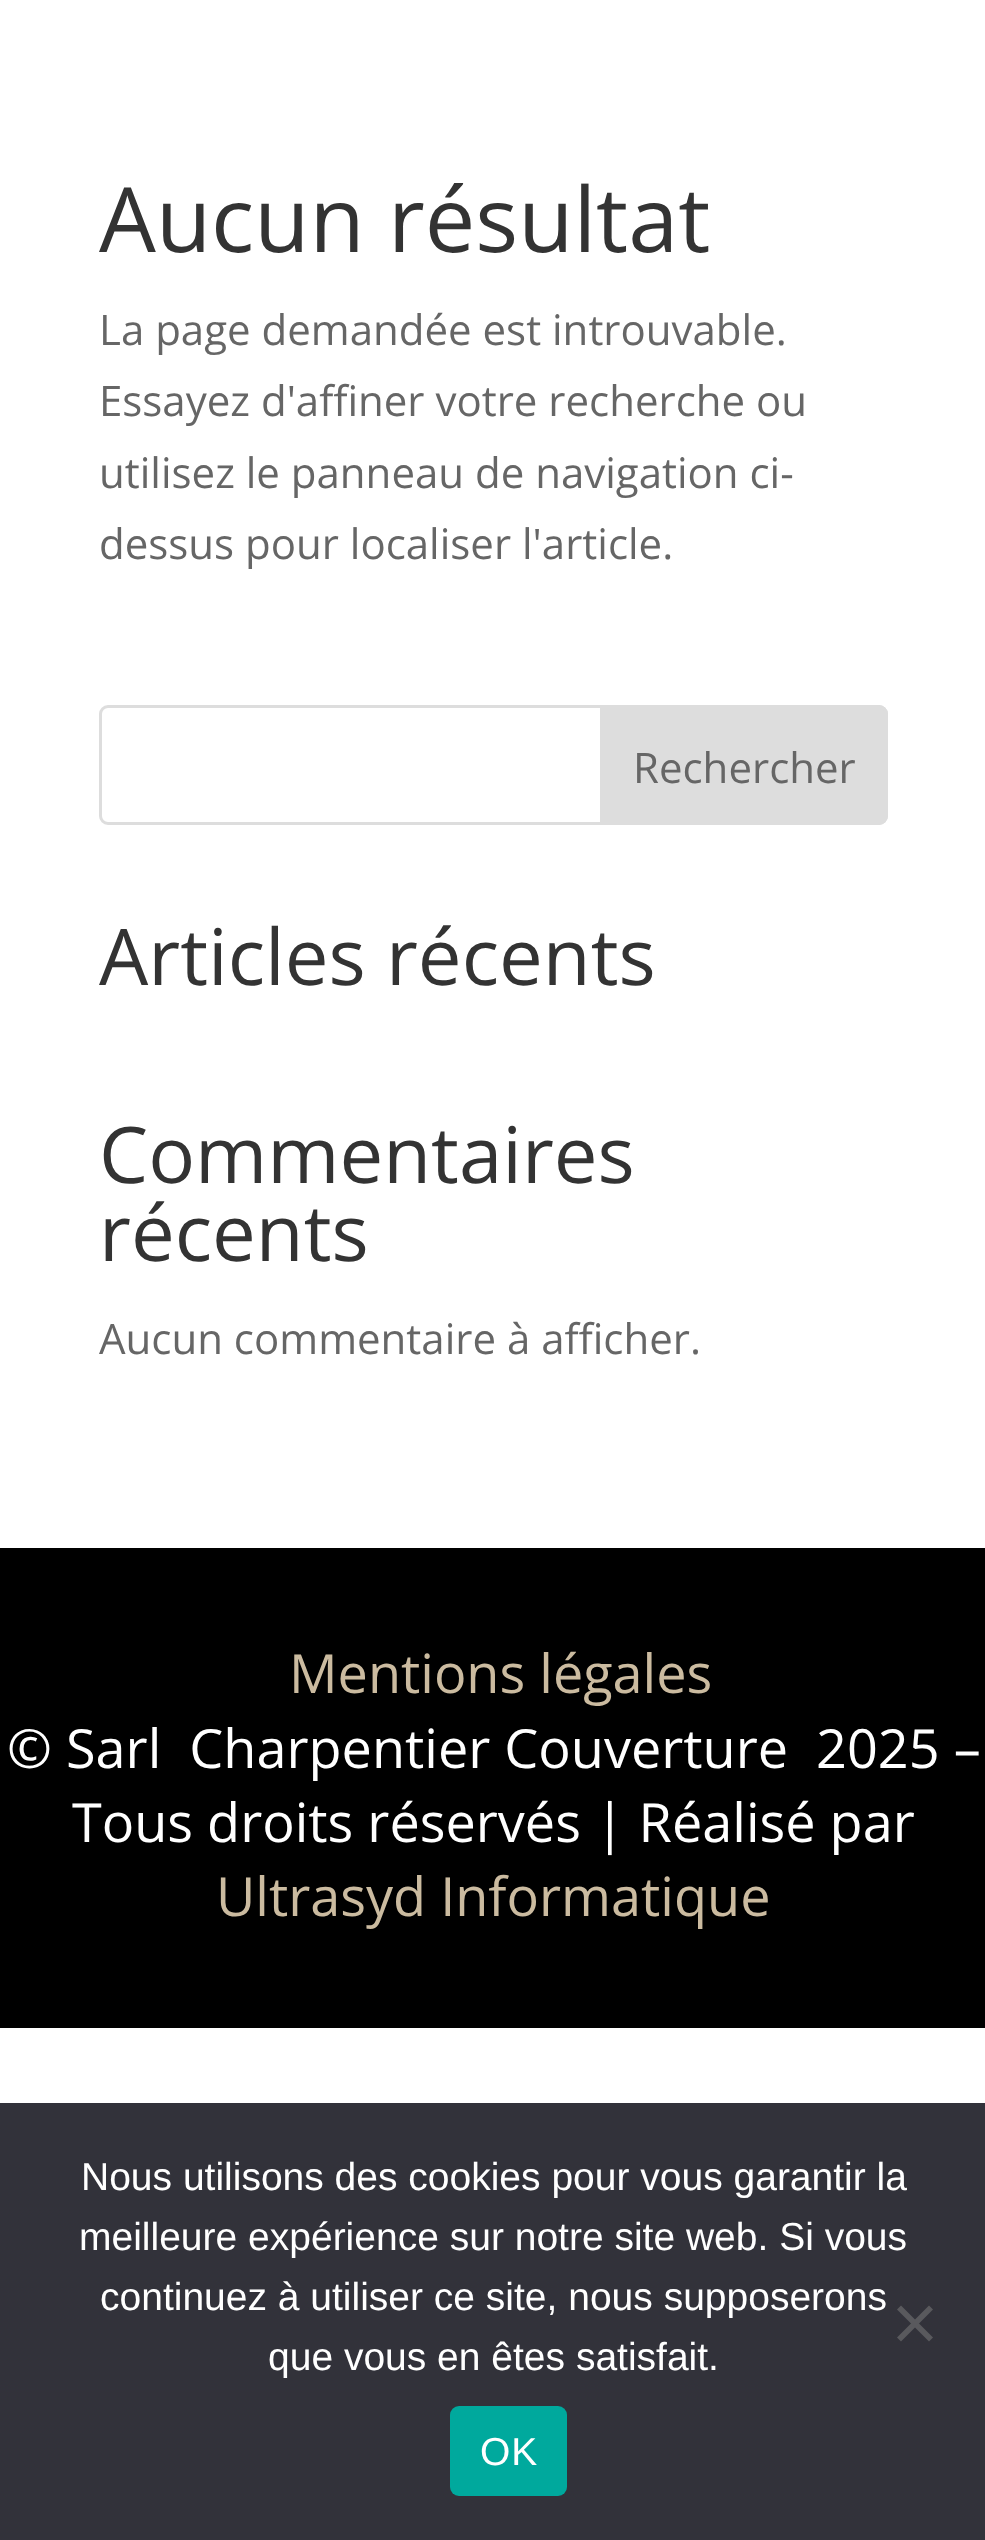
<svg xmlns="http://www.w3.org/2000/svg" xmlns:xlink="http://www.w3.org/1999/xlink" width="985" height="2540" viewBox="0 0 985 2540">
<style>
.cls-1{font:90px Open Sans;fill:#333333}
.cls-2{font:42px Open Sans;fill:#666666}
.cls-3{font:78px Open Sans;fill:#333333}
.cls-4{font:54px Open Sans;fill:#cbbba0}
.cls-5{font:54px Open Sans;fill:#ffffff}
.cls-6{font:39px Liberation Sans;fill:#ffffff}
.cls-7{font:39px Liberation Sans;letter-spacing:1px;fill:#ffffff}
</style>
<rect width="100%" height="100%" fill="#ffffff"/>
<rect fill="none" stroke="#dddddd" stroke-width="3" x="100.5" y="706.5" width="786" height="117" rx="7.5"/>
<path fill="#dddddd" stroke="#dddddd" stroke-width="3" d="M601.5 706.5H879C883 706.5 886.5 710 886.5 714V816C886.5 820 883 823.5 879 823.5H601.5Z"/>
<rect fill="#000000" x="0" y="1548" width="985" height="480"/>
<rect fill="#32323a" x="0" y="2103" width="985" height="437"/>
<path fill="#59595d" d="M929 2305.5L933 2309.5L901 2341.5L897 2337.5Z"/>
<path fill="#59595d" d="M897 2309.5L901 2305.5L933 2337.5L929 2341.5Z"/>
<rect fill="#00a99d" x="450" y="2406" width="117" height="90" rx="9"/>
<text class="cls-1" x="99" y="252">Aucun résultat</text>
<text class="cls-2"><tspan x="99" y="345">La page demandée est introuvable.</tspan><tspan x="99" y="416">Essayez d'affiner votre recherche ou</tspan><tspan x="99" y="488">utilisez le panneau de navigation ci-</tspan><tspan x="99" y="559">dessus pour localiser l'article.</tspan></text>
<text class="cls-2" x="633" y="783">Rechercher</text>
<text class="cls-3" x="99" y="985">Articles récents</text>
<text class="cls-3"><tspan x="99" y="1183">Commentaires</tspan><tspan x="99" y="1261">récents</tspan></text>
<text class="cls-2" x="99" y="1354">Aucun commentaire à afficher.</text>
<text class="cls-4" x="289" y="1693">Mentions légales</text>
<text class="cls-5" xml:space="preserve" x="7" y="1768">© Sarl  Charpentier Couverture  2025 –</text>
<text class="cls-5" x="72" y="1842">Tous droits réservés | Réalisé par</text>
<text class="cls-4" x="216" y="1916">Ultrasyd Informatique</text>
<text class="cls-6" x="81" y="2190">Nous utilisons des cookies pour vous garantir la</text>
<text class="cls-6" x="79" y="2250">meilleure expérience sur notre site web. Si vous</text>
<text class="cls-6" x="100" y="2310">continuez à utiliser ce site, nous supposerons</text>
<text class="cls-6" x="268" y="2370">que vous en êtes satisfait.</text>
<text class="cls-7" x="480" y="2465">OK</text>
</svg>
